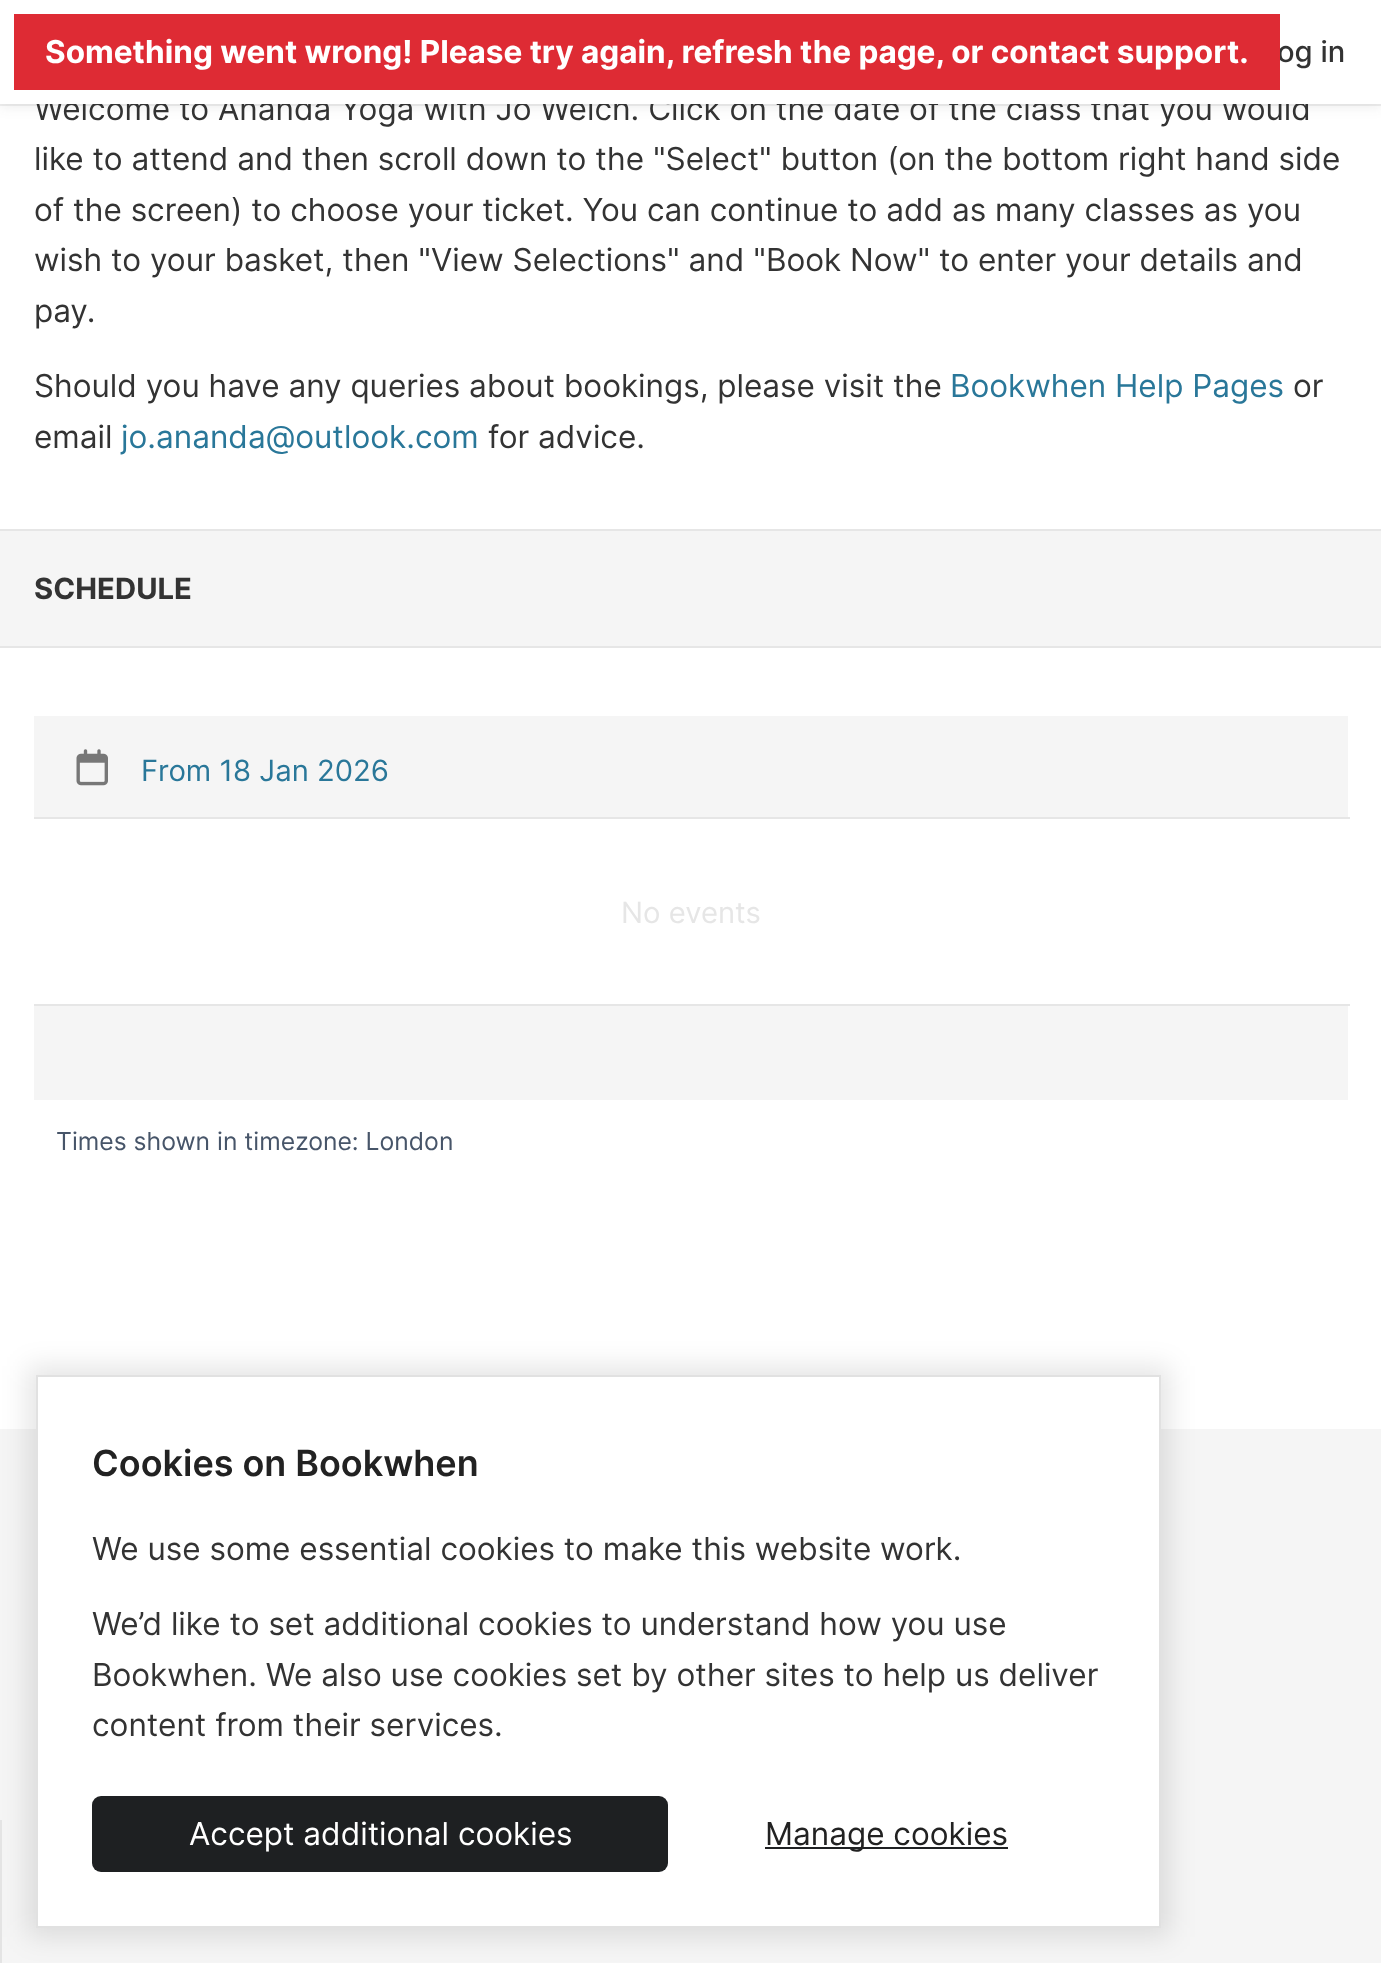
<svg xmlns="http://www.w3.org/2000/svg" xmlns:xlink="http://www.w3.org/1999/xlink" width="1381" height="1963" viewBox="0 0 1381 1963">
<style>
.cls-1{font:31.5px Inter;fill:#333333}
.cls-2{font:500 29.25px Inter;fill:#333333}
.cls-3{font:bold 31.5px Inter;fill:#ffffff}
.cls-4{font:31.5px Inter;fill:#297799}
.cls-5{font:bold 29.25px Inter;fill:#333333}
.cls-6{font:29.25px Inter;fill:#297799}
.cls-7{font:29.25px Inter;fill:#e6e6e6}
.cls-8{font:24.75px Inter;fill:#475569}
.cls-9{font:600 36px Inter;fill:#222222}
.cls-10{font:31.5px Inter;fill:#ffffff}
.cls-11{font:31.5px Inter;fill:#222222}
</style>
<rect width="100%" height="100%" fill="#ffffff"/>
<rect fill="#323232" fill-opacity="0.1" filter="blur(7px)" x="0" y="2" width="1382" height="104"/>
<path fill="#646464" fill-opacity="0.1" d="M0 104V106H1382V2V104Z"/>
<rect fill="#f5f5f5" x="0" y="531" width="1381" height="115"/>
<rect fill="#e6e6e6" x="0" y="529" width="1381" height="2"/>
<rect fill="#e6e6e6" x="0" y="646" width="1381" height="2"/>
<rect fill="#f5f5f5" x="34" y="716" width="1314" height="101"/>
<rect fill="#e6e6e6" x="34" y="817" width="1316" height="2"/>
<image xlink:href="image0.png" x="76" y="749" width="32" height="37"/>
<rect fill="#f5f5f5" x="34" y="1006" width="1314" height="94"/>
<rect fill="#e6e6e6" x="34" y="1004" width="1316" height="2"/>
<rect fill="#f5f5f5" x="0" y="1429" width="1381" height="534"/>
<rect fill="#e4e4e4" x="0" y="1820" width="2" height="143"/>
<rect fill="#000000" fill-opacity="0.1" filter="blur(13.5px)" x="27" y="1366" width="1143" height="571"/>
<rect fill="#ffffff" stroke="#e1e1e1" stroke-width="2" x="37" y="1376" width="1123" height="551"/>
<rect fill="#1e2022" x="92" y="1796" width="576" height="76" rx="9"/>
<rect fill="#1e2022" x="765" y="1847" width="243" height="2"/>
<text class="cls-1" x="34" y="120">Welcome to Ananda Yoga with Jo Welch. Click on the date of the class that you would</text>
<rect fill="#ffffff" x="0" y="0" width="1381" height="104"/>
<text class="cls-2" x="1277" y="62">og in</text>
<rect fill="#de2b34" x="14" y="14" width="1266" height="76"/>
<text class="cls-3" x="45" y="63">Something went wrong! Please try again, refresh the page, or contact support.</text>
<text class="cls-1"><tspan x="34" y="170">like to attend and then scroll down to the "Select" button (on the bottom right hand side</tspan><tspan x="34" y="221">of the screen) to choose your ticket. You can continue to add as many classes as you</tspan><tspan x="34" y="271">wish to your basket, then "View Selections" and "Book Now" to enter your details and</tspan><tspan x="34" y="322">pay.</tspan></text>
<text class="cls-1" x="34" y="397">Should you have any queries about bookings, please visit the</text>
<text class="cls-4" x="950" y="397">Bookwhen Help Pages</text>
<text class="cls-1" x="1293" y="397">or</text>
<text class="cls-1" x="34" y="448">email</text>
<text class="cls-4" x="121" y="448">jo.ananda@outlook.com</text>
<text class="cls-1" x="488" y="448">for advice.</text>
<text class="cls-5" x="34" y="599">SCHEDULE</text>
<text class="cls-6" x="141" y="781">From 18 Jan 2026</text>
<text class="cls-7" x="621" y="923">No events</text>
<text class="cls-8" x="56" y="1150">Times shown in timezone: London</text>
<text class="cls-9" x="92" y="1476">Cookies on Bookwhen</text>
<text class="cls-1" x="92" y="1560">We use some essential cookies to make this website work.</text>
<text class="cls-1"><tspan x="92" y="1635">We’d like to set additional cookies to understand how you use</tspan><tspan x="92" y="1686">Bookwhen. We also use cookies set by other sites to help us deliver</tspan><tspan x="92" y="1736">content from their services.</tspan></text>
<text class="cls-10" x="189" y="1845">Accept additional cookies</text>
<text class="cls-11" x="765" y="1845">Manage cookies</text>
</svg>
